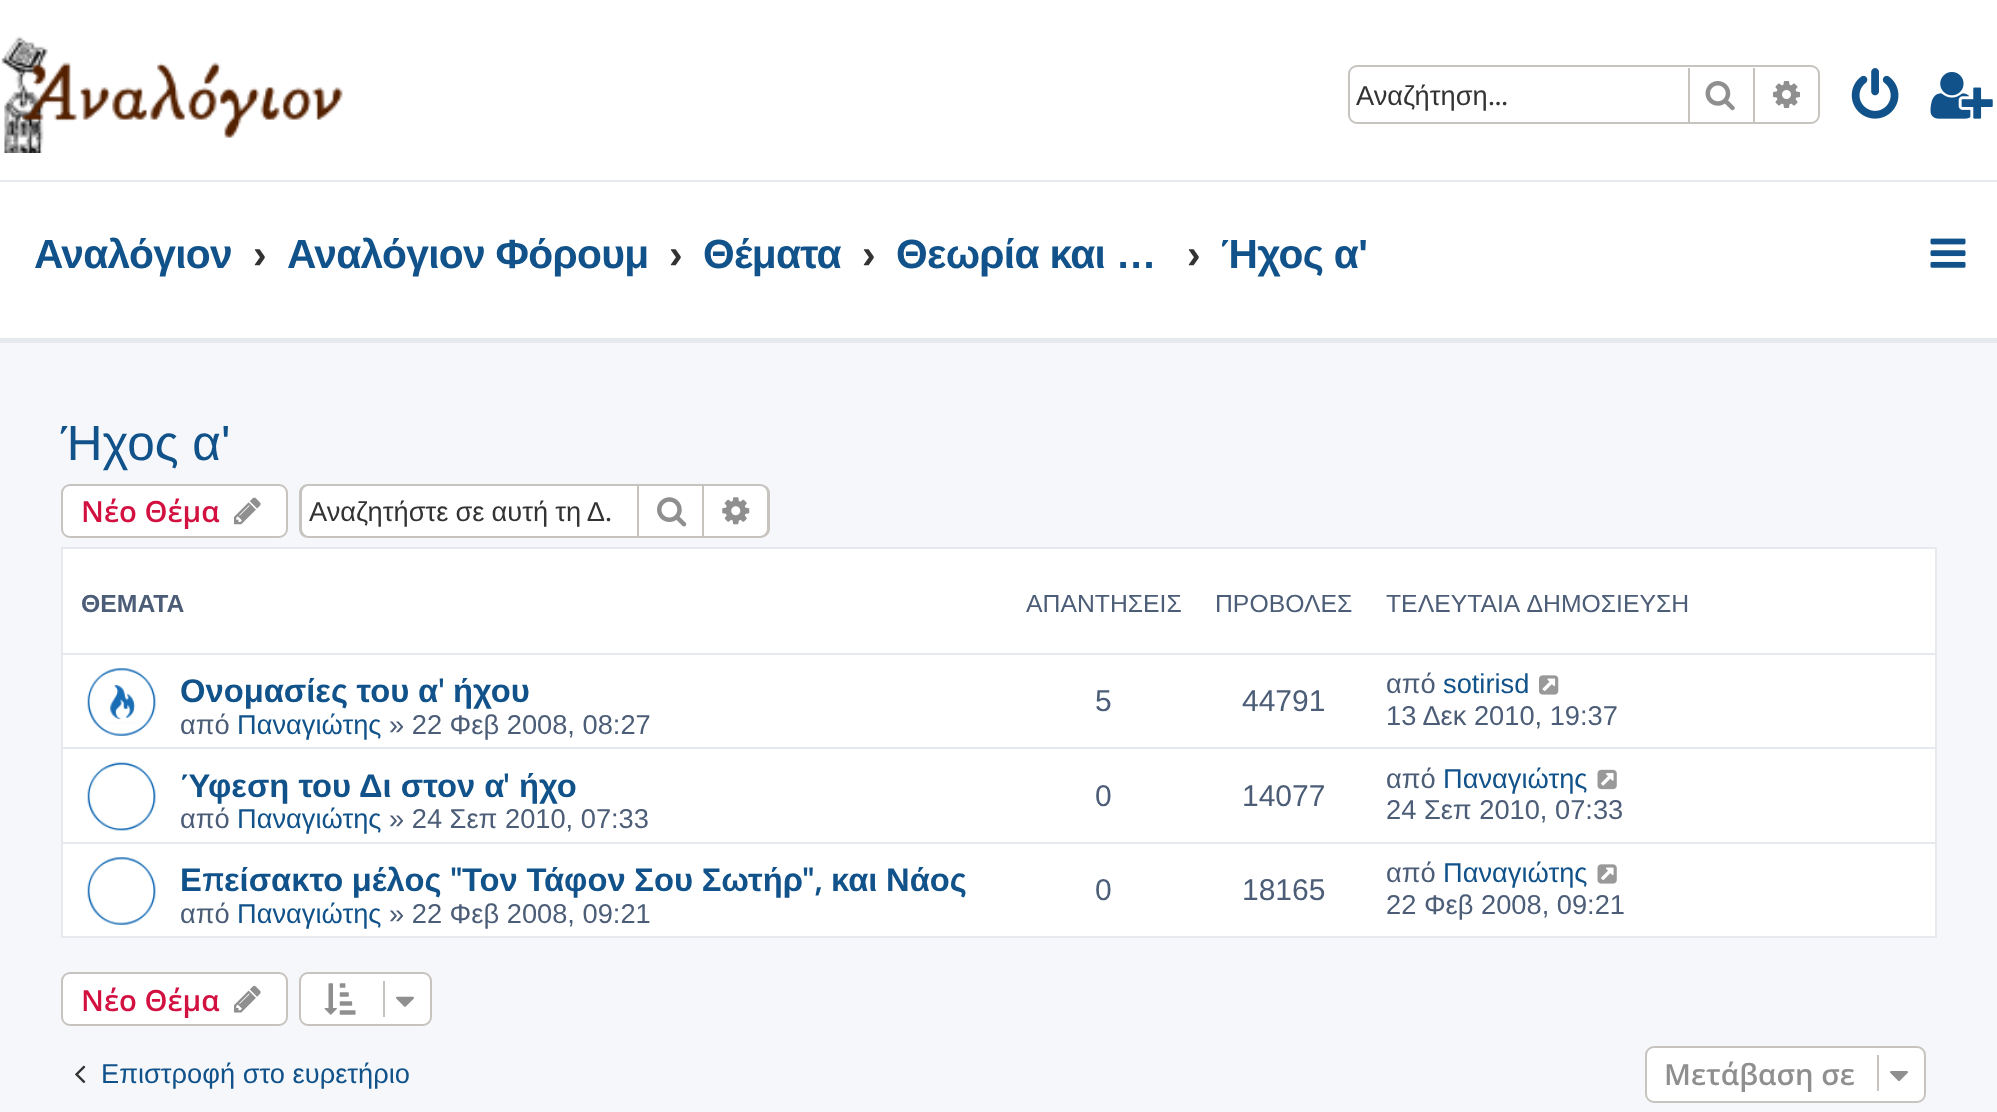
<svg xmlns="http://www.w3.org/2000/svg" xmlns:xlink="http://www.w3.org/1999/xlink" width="1997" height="1112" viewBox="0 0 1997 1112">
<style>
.cls-1{font:27.25px Liberation Sans;fill:#333333}
.cls-2{font:27.25px Oxygen;fill:#333333}
.cls-3{font:bold 40.75px Liberation Sans;letter-spacing:-0.7px;fill:#105289}
.cls-4{font:bold 40.75px Liberation Sans;fill:#333333}
.cls-5{font:49.5px Liberation Sans;fill:#105289}
.cls-6{font:600 29.25px Open Sans;fill:#d31141}
.cls-7{font:bold 24.75px Liberation Sans;fill:#4c5d77}
.cls-8{font:24.75px Liberation Sans;fill:#4c5d77}
.cls-9{font:bold 32.75px Liberation Sans;fill:#105289}
.cls-10{font:bold 32.75px Oxygen;fill:#105289}
.cls-11{font:27.25px Liberation Sans;fill:#4c5d77}
.cls-12{font:27.25px Liberation Sans;fill:#105289}
.cls-13{font:30px Liberation Sans;fill:#4c5d77}
.cls-14{font:600 29.25px Open Sans;fill:#8f8f8f}
</style>
<defs>
<clipPath id="clip1"><rect x="1222" y="212" width="146" height="90"/></clipPath>
</defs>
<rect width="100%" height="100%" fill="#f5f7fa"/>
<rect fill="#ffffff" x="0" y="0" width="1997" height="180"/>
<rect fill="#e6e9ed" x="0" y="180" width="1997" height="2"/>
<image xlink:href="image0.png" x="1" y="36" width="342" height="117"/>
<rect fill="none" stroke="#c7c3bf" stroke-width="2" x="1349" y="66" width="470" height="57" rx="8"/>
<path fill="#ffffff" d="M1359 68H1688V122H1359C1354 122 1350 118 1350 113V77C1350 72 1354 68 1359 68Z"/>
<rect fill="#c7c3bf" x="1753" y="68" width="2" height="54"/>
<rect fill="#c7c3bf" x="1688" y="68" width="2" height="54"/>
<image xlink:href="image1.png" x="1705" y="81" width="30" height="30"/>
<path fill="#ffffff" d="M1755 68H1809C1814 68 1818 72 1818 77V113C1818 118 1814 122 1809 122H1755Z"/>
<image xlink:href="image2.png" x="1773" y="81" width="27" height="27"/>
<image xlink:href="image3.png" x="1851" y="68" width="48" height="51"/>
<image xlink:href="image4.png" x="1930" y="72" width="63" height="47"/>
<rect fill="#ffffff" x="0" y="182" width="1997" height="156"/>
<rect fill="#e6e9ed" x="0" y="338" width="1997" height="5"/>
<image xlink:href="image5.png" x="1930" y="238" width="36" height="30"/>
<rect fill="#ffffff" stroke="#c7c3bf" stroke-width="2" x="62" y="485" width="225" height="52" rx="8"/>
<image xlink:href="image6.png" x="234" y="497" width="27" height="28"/>
<path fill="#ffffff" d="M309 486H637V536H309C305 536 302 533 302 529V493C302 489 305 486 309 486Z"/>
<path fill="#c7c3bf" fill-rule="evenodd" d="M308 484H637V538H308C303 538 299 534 299 529V493C299 488 303 484 308 484ZM308 486H637V536H308C305 536 302 532 302 529V493C302 489 305 486 308 486Z"/>
<rect fill="#ffffff" stroke="#c7c3bf" stroke-width="2" x="638" y="485" width="65" height="52"/>
<image xlink:href="image7.png" x="657" y="497" width="30" height="30"/>
<path fill="#ffffff" d="M704 486H760C764 486 767 489 767 493V529C767 533 764 536 760 536H704Z"/>
<path fill="#c7c3bf" fill-rule="evenodd" d="M704 484H760C765 484 770 488 770 493V529C770 534 765 538 760 538H704ZM704 486H760C764 486 767 489 767 493V529C767 532 764 536 760 536H704Z"/>
<image xlink:href="image8.png" x="722" y="497" width="28" height="28"/>
<rect fill="#ffffff" stroke="#e6e9ed" stroke-width="2" x="62" y="548" width="1874" height="389"/>
<rect fill="#e6e9ed" x="63" y="653" width="1872" height="2"/>
<image xlink:href="image9.png" x="87" y="668" width="69" height="68"/>
<image xlink:href="image10.png" x="1539" y="675" width="20" height="20"/>
<rect fill="#e6e9ed" x="63" y="747" width="1872" height="2"/>
<image xlink:href="image11.png" x="87" y="762" width="69" height="69"/>
<image xlink:href="image12.png" x="1597" y="769" width="20" height="21"/>
<rect fill="#e6e9ed" x="63" y="842" width="1872" height="2"/>
<image xlink:href="image13.png" x="87" y="857" width="69" height="68"/>
<image xlink:href="image14.png" x="1597" y="864" width="20" height="20"/>
<rect fill="#ffffff" stroke="#c7c3bf" stroke-width="2" x="62" y="973" width="225" height="52" rx="8"/>
<image xlink:href="image15.png" x="234" y="985" width="27" height="28"/>
<rect fill="#ffffff" stroke="#c7c3bf" stroke-width="2" x="300" y="973" width="131" height="52" rx="8"/>
<image xlink:href="image16.png" x="324" y="983" width="32" height="32"/>
<rect fill="#c7c3bf" x="383" y="981" width="2" height="36"/>
<image xlink:href="image17.png" x="396" y="996" width="18" height="11"/>
<image xlink:href="image18.png" x="75" y="1065" width="11" height="19"/>
<rect fill="#ffffff" stroke="#c7c3bf" stroke-width="2" x="1646" y="1047" width="279" height="55" rx="8"/>
<rect fill="#c7c3bf" x="1877" y="1055" width="2" height="36"/>
<image xlink:href="image19.png" x="1890" y="1071" width="18" height="11"/>
<text class="cls-1" x="1356" y="105">Αναζήτηση</text>
<text class="cls-2" x="1488" y="105">…</text>
<text class="cls-3" x="34" y="268">Αναλόγιον</text>
<text class="cls-4" x="253" y="268">›</text>
<text class="cls-3" x="287" y="268">Αναλόγιον Φόρουμ</text>
<text class="cls-4" x="669" y="268">›</text>
<text class="cls-3" x="703" y="268">Θέματα</text>
<text class="cls-4" x="862" y="268">›</text>
<text class="cls-3" x="896" y="268">Θεωρία και …</text>
<text class="cls-4" x="1187" y="268">›</text>
<g clip-path="url(#clip1)">
<text class="cls-3" x="1221" y="268">Ήχος α'</text>
</g>
<text class="cls-5" x="61" y="460">Ήχος α'</text>
<text class="cls-6" x="81" y="522">Νέο Θέμα</text>
<text class="cls-1" x="309" y="521" word-spacing="-0.5">Αναζητήστε σε αυτή τη Δ</text>
<text class="cls-2" x="605" y="521">.</text>
<text class="cls-7" x="81" y="612">ΘΕΜΑΤΑ</text>
<text class="cls-8" x="1026" y="612">ΑΠΑΝΤΗΣΕΙΣ</text>
<text class="cls-8" x="1215" y="612">ΠΡΟΒΟΛΕΣ</text>
<text class="cls-8" x="1386" y="612" word-spacing="2">ΤΕΛΕΥΤΑΙΑ ΔΗΜΟΣΙΕΥΣΗ</text>
<text class="cls-9" x="180" y="702" word-spacing="-0.5">Ονομασίες του α</text>
<text class="cls-10" x="438" y="702">'</text>
<text class="cls-9" x="453" y="702">ήχου</text>
<text class="cls-11" x="180" y="734">από</text>
<text class="cls-12" x="237" y="734">Παναγιώτης</text>
<text class="cls-11" x="389" y="734">» 22 Φεβ 2008, 08:27</text>
<text class="cls-13" x="1095" y="711">5</text>
<text class="cls-13" x="1242" y="711">44791</text>
<text class="cls-11" x="1386" y="693">από</text>
<text class="cls-12" x="1443" y="693">sotirisd</text>
<text class="cls-11" x="1386" y="725">13 Δεκ 2010, 19:37</text>
<text class="cls-9" x="180" y="797">Ύφεση του Δι στον α</text>
<text class="cls-10" x="503" y="797">'</text>
<text class="cls-9" x="519" y="797">ήχο</text>
<text class="cls-11" x="180" y="828">από</text>
<text class="cls-12" x="237" y="828">Παναγιώτης</text>
<text class="cls-11" x="389" y="828">» 24 Σεπ 2010, 07:33</text>
<text class="cls-13" x="1095" y="806">0</text>
<text class="cls-13" x="1242" y="806">14077</text>
<text class="cls-11" x="1386" y="788">από</text>
<text class="cls-12" x="1443" y="788">Παναγιώτης</text>
<text class="cls-11" x="1386" y="819">24 Σεπ 2010, 07:33</text>
<text class="cls-9" x="180" y="891">Ε</text>
<text class="cls-10" x="202" y="891">π</text>
<text class="cls-9" x="224" y="891" word-spacing="-0.5">είσακτο μέλος</text>
<text class="cls-10" x="450" y="891">"</text>
<text class="cls-9" x="462" y="891" word-spacing="-0.5">Τον Τάφον Σου Σωτήρ</text>
<text class="cls-10" x="802" y="891">",</text>
<text class="cls-9" x="831" y="891" word-spacing="-0.5">και Νάος</text>
<text class="cls-11" x="180" y="923">από</text>
<text class="cls-12" x="237" y="923">Παναγιώτης</text>
<text class="cls-11" x="389" y="923">» 22 Φεβ 2008, 09:21</text>
<text class="cls-13" x="1095" y="900">0</text>
<text class="cls-13" x="1242" y="900">18165</text>
<text class="cls-11" x="1386" y="882">από</text>
<text class="cls-12" x="1443" y="882">Παναγιώτης</text>
<text class="cls-11" x="1386" y="914">22 Φεβ 2008, 09:21</text>
<text class="cls-6" x="81" y="1011">Νέο Θέμα</text>
<text class="cls-12" x="101" y="1083">Επιστροφή στο ευρετήριο</text>
<text class="cls-14" x="1664" y="1085">Μετάβαση σε</text>
</svg>
